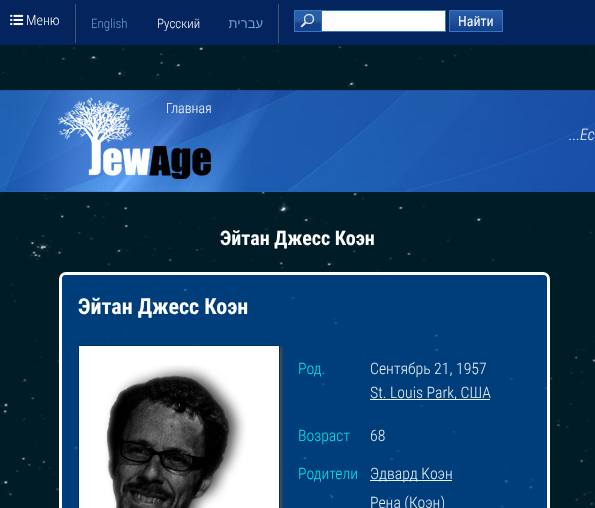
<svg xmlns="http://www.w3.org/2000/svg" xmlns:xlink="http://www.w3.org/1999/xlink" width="595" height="508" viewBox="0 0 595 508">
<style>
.cls-1{font:300 14px Roboto Condensed;fill:#ffffff}
.cls-2{font:300 13px Roboto Condensed;fill:#6fa1d1}
.cls-3{font:300 13px Roboto Condensed;fill:#ffffff}
.cls-4{font:13px Liberation Sans;direction:rtl;fill:#6fa1d1}
.cls-5{font:14px Roboto Condensed;fill:#ffffff}
.cls-6{font:italic 300 16px Roboto Condensed;fill:#ffffff}
.cls-7{font:bold 20px Roboto Condensed;fill:#ffffff}
.cls-8{font:bold 22px Roboto Condensed;fill:#ffffff}
.cls-9{font:300 15.75px Roboto Condensed;fill:#07e3f2}
.cls-10{font:300 15.75px Roboto Condensed;fill:#e6f1f2}
</style>
<defs>
<linearGradient id="g1" gradientUnits="userSpaceOnUse" x1="476" y1="11" x2="476" y2="31"><stop offset="0" stop-color="#2860aa"/><stop offset="1" stop-color="#153f89"/></linearGradient>
</defs>
<rect width="100%" height="100%" fill="#001c27"/>
<rect fill="#04245d" x="0" y="0" width="595" height="45"/>
<image xlink:href="image0.png" x="10" y="14" width="14" height="12"/>
<rect fill="#445371" x="278" y="4" width="1" height="39"/>
<rect fill="#445371" x="75" y="4" width="1" height="39"/>
<rect fill="#ffffff" x="322" y="11" width="123" height="20"/>
<image xlink:href="image1.png" x="295" y="11" width="27" height="20"/>
<rect fill="none" stroke="#3379c0" x="294.5" y="10.5" width="151" height="21"/>
<rect fill="url(#g1)" x="450" y="11" width="52" height="20"/>
<rect fill="none" stroke="#3379c0" x="449.5" y="10.5" width="53" height="21"/>
<image xlink:href="image4.png" x="0" y="45" width="595" height="463"/>
<image xlink:href="image2.png" x="0" y="90" width="595" height="102"/>
<rect fill="#004798" fill-opacity="0.5" stroke="#ffffff" stroke-width="3" x="60.5" y="273.5" width="488" height="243" rx="5.5"/>
<rect fill="#004798" fill-opacity="0.5" x="62" y="275" width="485" height="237" rx="4"/>
<rect fill="#4d4d4d" filter="blur(1.5px)" x="80" y="347" width="202" height="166"/>
<rect fill="#ffffff" stroke="#003163" x="78.5" y="345.5" width="201" height="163"/>
<image xlink:href="image3.png" x="105" y="365" width="141" height="143"/>
<rect fill="#e6f1f2" x="370" y="399" width="120" height="1"/>
<rect fill="#e6f1f2" x="370" y="480" width="82" height="1"/>
<text class="cls-1" x="26" y="25">Меню</text>
<text class="cls-2" x="91" y="28">English</text>
<text class="cls-3" x="157" y="28">Русский</text>
<text class="cls-4" x="263" y="28">עברית</text>
<text class="cls-5" x="458" y="26">Найти</text>
<text class="cls-1" x="166" y="113">Главная</text>
<text class="cls-6" x="569" y="140">...Ес</text>
<text class="cls-7" x="220" y="245">Эйтан Джесс Коэн</text>
<text class="cls-8" x="78" y="314">Эйтан Джесс Коэн</text>
<text class="cls-9" x="298" y="374">Род.</text>
<text class="cls-10"><tspan x="370" y="374">Сентябрь 21, 1957</tspan><tspan x="370" y="398">St. Louis Park, США</tspan></text>
<text class="cls-9" x="298" y="441">Возраст</text>
<text class="cls-10" x="370" y="441">68</text>
<text class="cls-9" x="298" y="479">Родители</text>
<text class="cls-10"><tspan x="370" y="479">Эдвард Kоэн</tspan><tspan x="370" y="508">Рена (Коэн)</tspan></text>
</svg>
